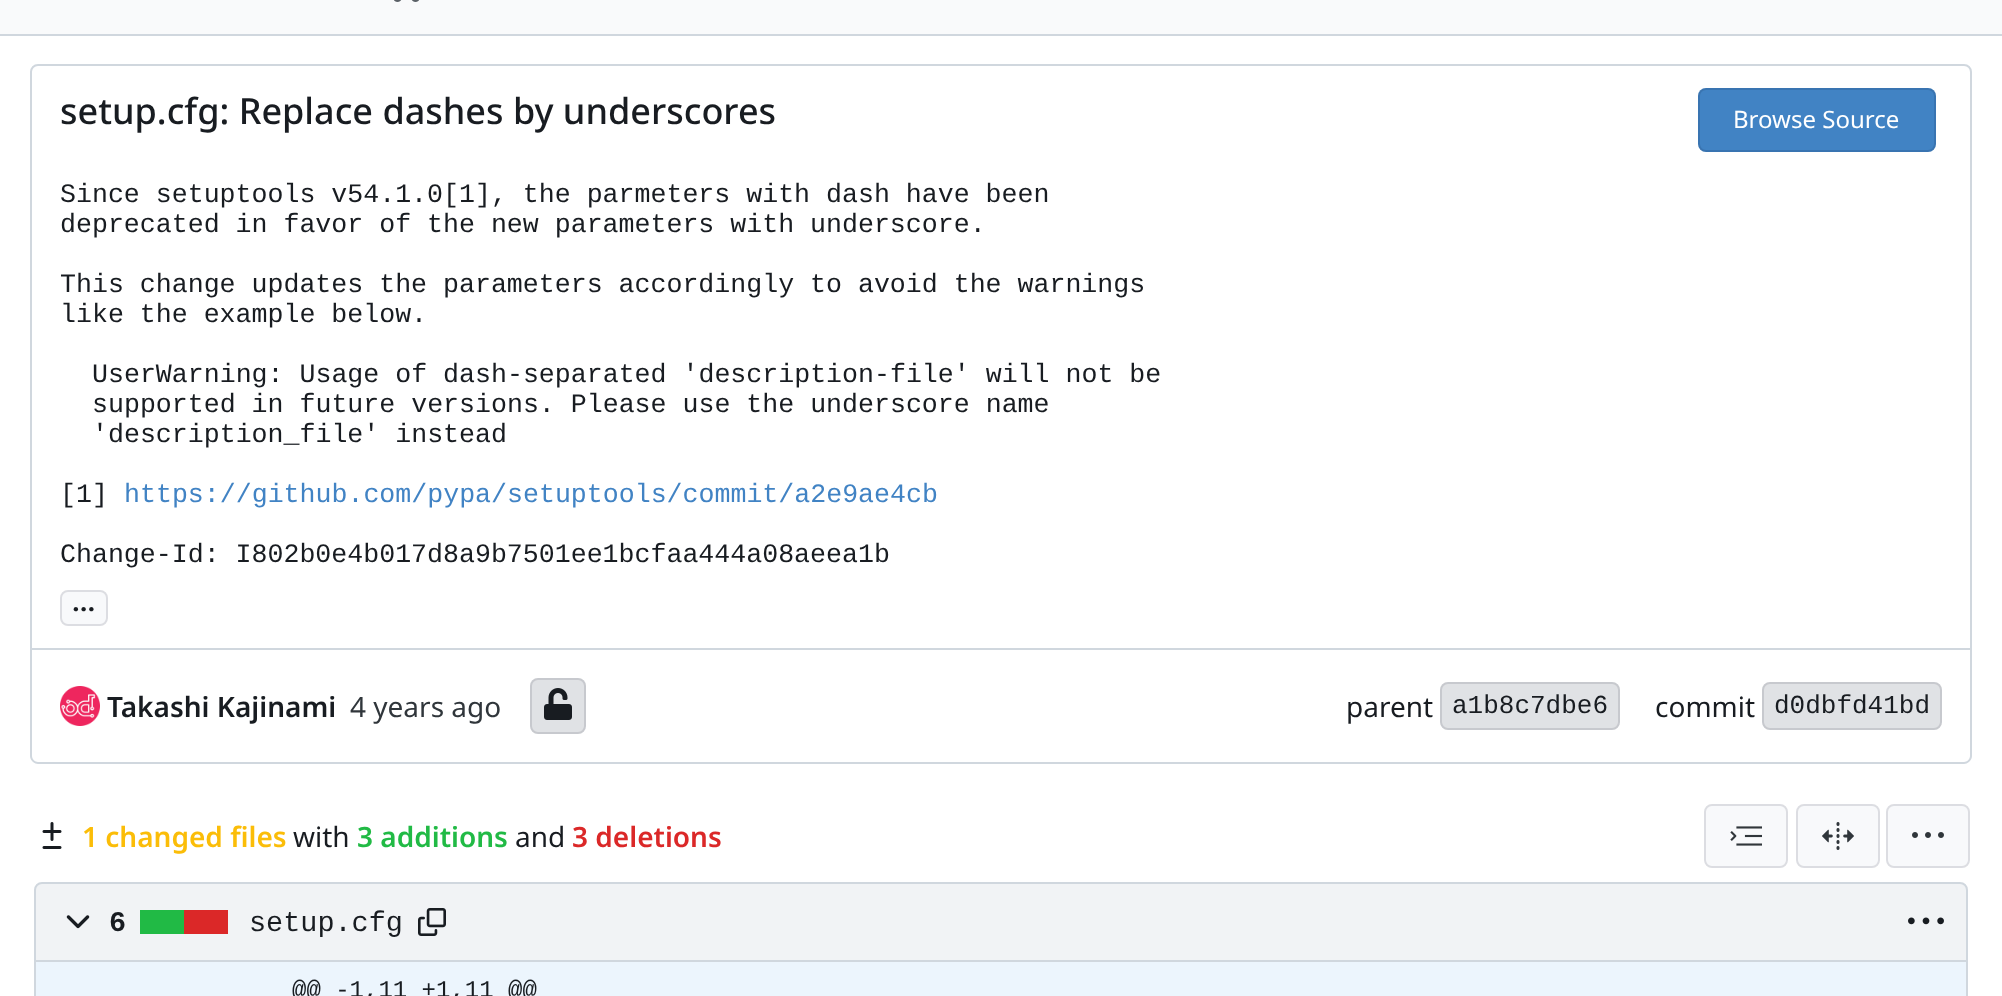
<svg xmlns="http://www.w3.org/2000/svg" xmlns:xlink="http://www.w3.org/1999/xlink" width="2002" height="996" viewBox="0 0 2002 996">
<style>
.cls-1{font:500 36px Noto Sans;fill:#181c21}
.cls-2{font:24px Noto Sans;fill:#ffffff}
.cls-3{font:26.6px Liberation Mono;fill:#181c21}
.cls-4{font:26.6px Liberation Mono;fill:#4183c4}
.cls-5{font:600 28px Noto Sans;fill:#181c21}
.cls-6{font:28px Noto Sans;fill:#30363b}
.cls-7{font:28px Noto Sans;fill:#181c21}
.cls-8{font:26px Liberation Mono;fill:#181c21}
.cls-9{font:600 28px Noto Sans;fill:#fbbd08}
.cls-10{font:600 28px Noto Sans;fill:#21ba45}
.cls-11{font:600 28px Noto Sans;fill:#db2828}
.cls-12{font:bold 28.5px Liberation Mono;fill:#181c21}
.cls-13{font:28.5px Liberation Mono;fill:#181c21}
.cls-14{font:24px Liberation Mono;fill:#181c21}
</style>
<rect width="100%" height="100%" fill="#ffffff"/>
<rect fill="#f9fafb" x="0" y="0" width="2002" height="34"/>
<image xlink:href="image0.png" x="394" y="0" width="25" height="2"/>
<rect fill="#d0d7de" x="0" y="34" width="2002" height="2"/>
<path fill="none" stroke="#d0d7de" stroke-width="2" d="M38 65H1964C1968 65 1971 68 1971 72V649H31V72C31 68 34 65 38 65Z"/>
<rect fill="#4183c4" x="1698" y="88" width="238" height="64" rx="8"/>
<rect fill="none" stroke="#000017" stroke-opacity="0.11" stroke-width="2" x="1699" y="89" width="236" height="62" rx="7"/>
<rect fill="#f8f9fb" x="60" y="590" width="48" height="36" rx="8"/>
<rect fill="none" stroke="#000017" stroke-opacity="0.11" stroke-width="2" x="61" y="591" width="46" height="34" rx="7"/>
<path fill="#d0d7de" fill-rule="evenodd" d="M30 650H1972V756C1972 760 1968 764 1964 764H38C34 764 30 760 30 756ZM32 650H1970V756C1970 759 1967 762 1964 762H38C35 762 32 759 32 756Z"/>
<image xlink:href="image1.png" x="60" y="686" width="40" height="40"/>
<rect fill="#e0e2e5" x="530" y="678" width="56" height="56" rx="8"/>
<rect fill="none" stroke="#000017" stroke-opacity="0.11" stroke-width="2" x="531" y="679" width="54" height="54" rx="7"/>
<image xlink:href="image2.png" x="544" y="688" width="28" height="32"/>
<rect fill="#e0e2e5" x="1440" y="682" width="180" height="48" rx="8"/>
<rect fill="none" stroke="#000017" stroke-opacity="0.11" stroke-width="2" x="1441" y="683" width="178" height="46" rx="7"/>
<rect fill="#e0e2e5" x="1762" y="682" width="180" height="48" rx="8"/>
<rect fill="none" stroke="#000017" stroke-opacity="0.11" stroke-width="2" x="1763" y="683" width="178" height="46" rx="7"/>
<image xlink:href="image3.png" x="42" y="822" width="20" height="27"/>
<rect fill="#f8f9fb" x="1704" y="804" width="84" height="64" rx="8"/>
<rect fill="none" stroke="#000017" stroke-opacity="0.11" stroke-width="2" x="1705" y="805" width="82" height="62" rx="7"/>
<image xlink:href="image4.png" x="1730" y="826" width="32" height="20"/>
<rect fill="#f8f9fb" x="1796" y="804" width="84" height="64" rx="8"/>
<rect fill="none" stroke="#000017" stroke-opacity="0.11" stroke-width="2" x="1797" y="805" width="82" height="62" rx="7"/>
<image xlink:href="image5.png" x="1822" y="822" width="32" height="28"/>
<rect fill="#f8f9fb" x="1886" y="804" width="84" height="64" rx="8"/>
<rect fill="none" stroke="#000017" stroke-opacity="0.11" stroke-width="2" x="1887" y="805" width="82" height="62" rx="7"/>
<image xlink:href="image6.png" x="1912" y="832" width="32" height="6"/>
<path fill="#f1f3f5" stroke="#d0d7de" stroke-width="2" d="M42 883H1960C1964 883 1967 886 1967 890V961H35V890C35 886 38 883 42 883Z"/>
<image xlink:href="image7.png" x="66" y="915" width="24" height="14"/>
<rect fill="#db2828" x="184" y="910" width="44" height="24"/>
<rect fill="#21ba45" x="140" y="910" width="44" height="24"/>
<image xlink:href="image8.png" x="418" y="908" width="28" height="28"/>
<image xlink:href="image9.png" x="1908" y="917" width="36" height="8"/>
<path fill="#d0d7de" fill-rule="evenodd" d="M34 962H1968V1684C1968 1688 1964 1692 1960 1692H42C38 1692 34 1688 34 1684ZM36 962H1966V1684C1966 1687 1963 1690 1960 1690H42C39 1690 36 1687 36 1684Z"/>
<rect fill="#ecf5fd" x="36" y="962" width="1930" height="34"/>
<text class="cls-1" x="60" y="124">setup.cfg: Replace dashes by underscores</text>
<text class="cls-2" x="1733" y="128">Browse Source</text>
<text class="cls-3"><tspan x="60" y="202">Since setuptools v54.1.0[1], the parmeters with dash have been</tspan><tspan x="60" y="232">deprecated in favor of the new parameters with underscore.</tspan></text>
<text class="cls-3"><tspan x="60" y="292">This change updates the parameters accordingly to avoid the warnings</tspan><tspan x="60" y="322">like the example below.</tspan></text>
<text class="cls-3"><tspan x="92" y="382">UserWarning: Usage of dash-separated 'description-file' will not be</tspan><tspan x="92" y="412">supported in future versions. Please use the underscore name</tspan><tspan x="92" y="442">'description_file' instead</tspan></text>
<text class="cls-3" x="60" y="502">[1]</text>
<text class="cls-4" x="124" y="502">https://github.com/pypa/setuptools/commit/a2e9ae4cb</text>
<text class="cls-3" x="60" y="562">Change-Id: I802b0e4b017d8a9b7501ee1bcfaa444a08aeea1b</text>
<text class="cls-5" x="72" y="611">...</text>
<text class="cls-5" x="107" y="717">Takashi Kajinami</text>
<text class="cls-6" x="350" y="717">4 years ago</text>
<text class="cls-7" x="1346" y="717">parent</text>
<text class="cls-8" x="1452" y="713">a1b8c7dbe6</text>
<text class="cls-7" x="1655" y="717">commit</text>
<text class="cls-8" x="1774" y="713">d0dbfd41bd</text>
<text class="cls-9" x="82" y="847">1 changed files</text>
<text class="cls-7" x="293" y="847">with</text>
<text class="cls-10" x="357" y="847">3 additions</text>
<text class="cls-7" x="515" y="847">and</text>
<text class="cls-11" x="572" y="847">3 deletions</text>
<text class="cls-12" x="109" y="931">6</text>
<text class="cls-13" x="249" y="931">setup.cfg</text>
<text class="cls-14" x="292" y="997">@@ -1,11 +1,11 @@</text>
</svg>
